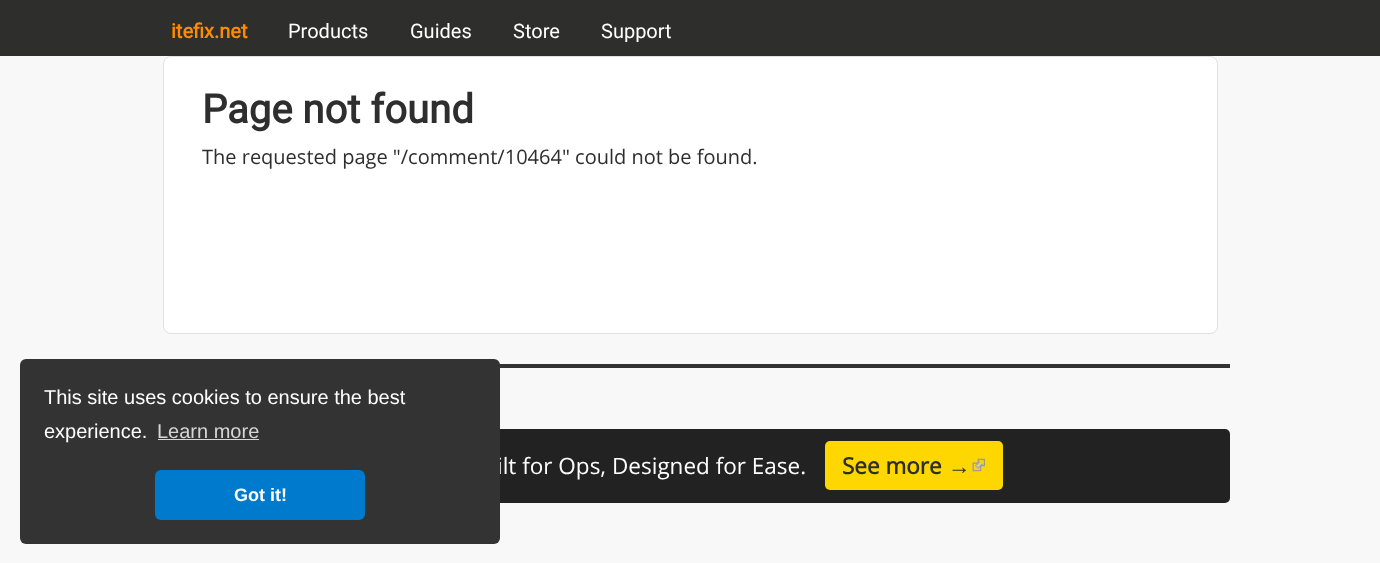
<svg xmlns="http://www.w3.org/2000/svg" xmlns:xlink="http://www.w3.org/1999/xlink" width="1380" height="563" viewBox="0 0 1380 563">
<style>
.cls-1{font:bold 20px Roboto;fill:#ff8c00}
.cls-2{font:20px Roboto;fill:#ffffff}
.cls-3{font:bold 40px Roboto;fill:#2e2e2e}
.cls-4{font:20px Open Sans;fill:#2e2e2e}
.cls-5{font:22.5px Open Sans;fill:#ffffff}
.cls-6{font:bold 22.5px Open Sans;fill:#2e2e2e}
.cls-7{font:bold 22.5px Liberation Serif;fill:#2e2e2e}
.cls-8{font:20px Liberation Sans;fill:#ffffff}
.cls-9{font:20px Liberation Sans;fill:#d6d6d6}
.cls-10{font:bold 18px Liberation Sans;fill:#ffffff}
</style>
<rect width="100%" height="100%" fill="#f8f8f8"/>
<rect fill="#2e2e2d" x="0" y="0" width="1380" height="56"/>
<rect fill="#ffffff" stroke="#e1e1e1" x="163.5" y="56.5" width="1054" height="277" rx="7.5"/>
<rect fill="#333333" x="499" y="364" width="731" height="4"/>
<rect fill="#222222" x="150" y="429" width="1080" height="74" rx="5"/>
<rect fill="#ffd700" x="825" y="441" width="178" height="49" rx="5"/>
<image xlink:href="image0.png" x="972" y="458" width="13" height="14"/>
<text class="cls-1" x="171" y="38">itefix.net</text>
<text class="cls-2" x="288" y="38">Products</text>
<text class="cls-2" x="410" y="38">Guides</text>
<text class="cls-2" x="513" y="38">Store</text>
<text class="cls-2" x="601" y="38">Support</text>
<text class="cls-3" x="202" y="123">Page not found</text>
<text class="cls-4" x="202" y="164">The requested page "/comment/10464" could not be found.</text>
<text class="cls-5" x="497" y="474">ilt for Ops, Designed for Ease.</text>
<text class="cls-6" x="842" y="474">See more</text>
<text class="cls-7" x="948" y="474">→</text>
<rect fill="#333333" x="20" y="359" width="480" height="185" rx="6"/>
<text class="cls-8"><tspan x="44" y="404">This site uses cookies to ensure the best</tspan><tspan x="44" y="438">experience.</tspan></text>
<text class="cls-9" x="157" y="438">Learn more</text>
<rect fill="#d6d6d6" x="158" y="439" width="101" height="1"/>
<rect fill="#007acc" x="155" y="470" width="210" height="50" rx="6"/>
<text class="cls-10" x="234" y="501">Got it!</text>
</svg>
